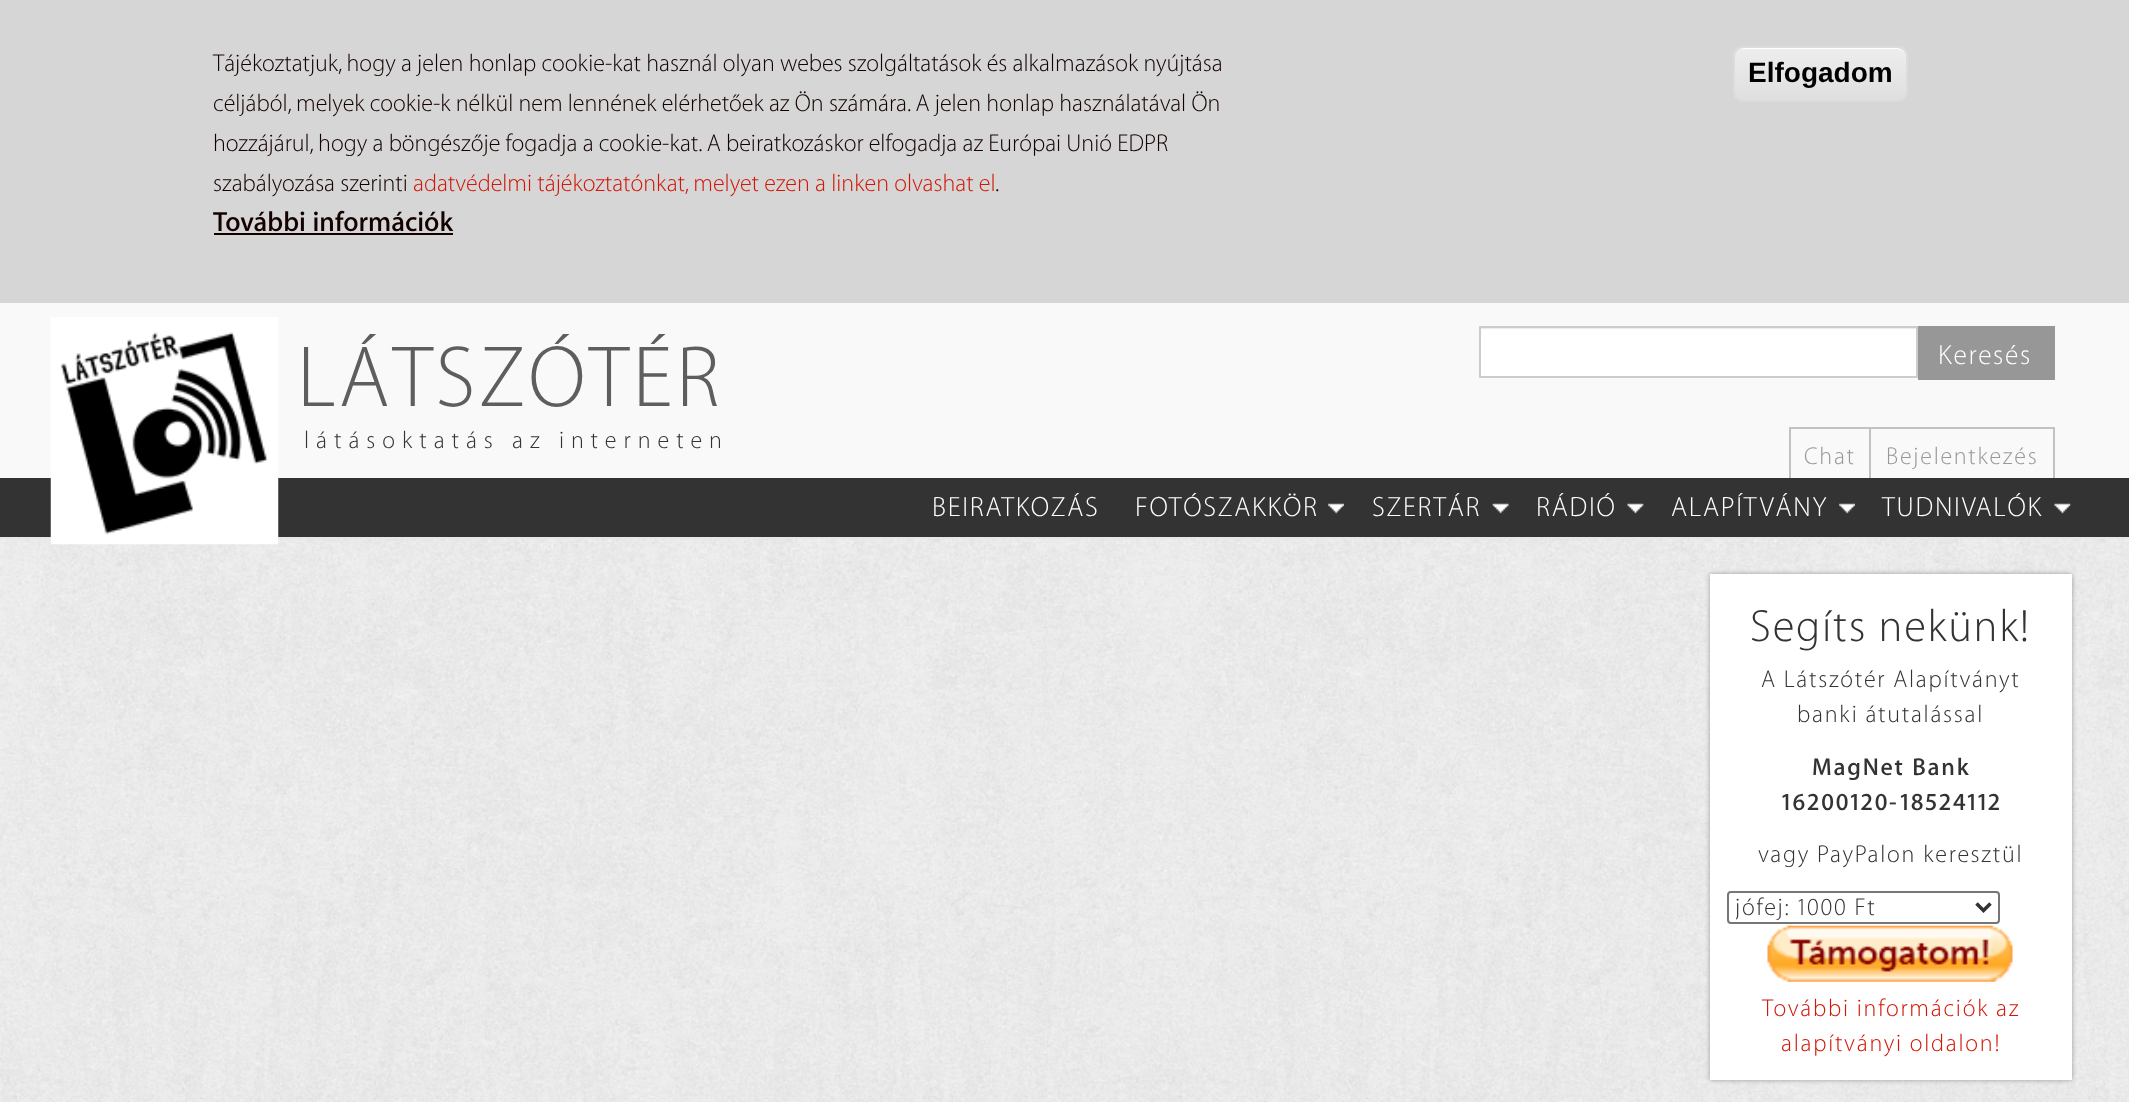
<svg xmlns="http://www.w3.org/2000/svg" xmlns:xlink="http://www.w3.org/1999/xlink" width="2129" height="1102" viewBox="0 0 2129 1102">
<style>
.cls-1{font:100 24.5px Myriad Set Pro;fill:#150000}
.cls-2{font:100 24.5px Myriad Set Pro;fill:#d21708}
.cls-3{font:600 28px Myriad Set Pro;fill:#150000}
.cls-4{font:bold 28px Liberation Sans;fill:#000000}
.cls-5{font:100 87.5px Myriad Set Pro;letter-spacing:3.5px;fill:#5e5e5e}
.cls-6{font:100 24.5px Myriad Set Pro;letter-spacing:7px;fill:#333333}
.cls-7{font:100 28px Myriad Set Pro;letter-spacing:1.75px;fill:#ffffff}
.cls-8{font:100 24.5px Myriad Set Pro;letter-spacing:1.75px;fill:#999999}
.cls-9{font:100 45.5px Myriad Set Pro;letter-spacing:1.75px;fill:#333333}
.cls-10{font:100 24.5px Myriad Set Pro;letter-spacing:1.75px;fill:#333333}
.cls-11{font:600 24.5px Myriad Set Pro;letter-spacing:1.75px;fill:#333333}
.cls-12{font:100 24.5px Myriad Set Pro;letter-spacing:1.75px;fill:#d21708}
</style>
<defs>
<clipPath id="clip1"><rect x="1733" y="46" width="175" height="56" rx="11"/></clipPath>
<linearGradient id="g1" gradientUnits="userSpaceOnUse" x1="1820" y1="47" x2="1820" y2="100"><stop offset="0.05" stop-color="#ededed"/><stop offset="1" stop-color="#dfdfdf"/></linearGradient>
<clipPath id="clip2"><rect x="1736" y="893" width="235" height="29"/></clipPath>
</defs>
<rect width="100%" height="100%" fill="#ffffff"/>
<image xlink:href="image0.png" x="0" y="539" width="2129" height="563"/>
<rect fill="#d6d6d6" x="0" y="0" width="2129" height="303"/>
<rect fill="#150000" x="214" y="233" width="239" height="2"/>
<g clip-path="url(#clip1)">
<rect fill="url(#g1)" x="1733" y="47" width="175" height="53"/>
</g>
<path fill="#ffffff" d="M1743 49H1897C1902 49 1906 53 1906 58V56C1906 51 1902 47 1897 47H1743C1738 47 1734 51 1734 56V58C1734 53 1738 49 1743 49Z"/>
<rect fill="none" stroke="#dcdcdc" stroke-width="2" x="1734" y="47" width="173" height="54" rx="10"/>
<rect fill="#f9f9f9" x="0" y="303" width="2129" height="175"/>
<rect fill="#e7e7e7" x="0" y="537" width="2129" height="2"/>
<rect fill="#333333" x="0" y="478" width="2129" height="59"/>
<image xlink:href="image1.png" x="50" y="317" width="229" height="228"/>
<rect fill="#ffffff" x="1481" y="329" width="435" height="47"/>
<rect fill="#ececec" x="1481" y="328" width="435" height="1"/>
<rect fill="none" stroke="#cccccc" stroke-width="2" x="1480" y="327" width="437" height="50"/>
<rect fill="#979797" x="1918" y="326" width="137" height="54"/>
<rect fill="#c2c2c2" x="1789" y="427" width="266" height="2"/>
<rect fill="#c2c2c2" x="1789" y="427" width="2" height="51"/>
<rect fill="#c2c2c2" x="2053" y="427" width="2" height="51"/>
<rect fill="#c2c2c2" x="1869" y="427" width="2" height="51"/>
<image xlink:href="image2.png" x="1328" y="503" width="16" height="11"/>
<image xlink:href="image3.png" x="1492" y="503" width="17" height="11"/>
<image xlink:href="image4.png" x="1627" y="503" width="17" height="11"/>
<image xlink:href="image5.png" x="1839" y="503" width="16" height="11"/>
<image xlink:href="image6.png" x="2054" y="503" width="17" height="11"/>
<rect fill="#999999" filter="blur(2.5px)" x="1710" y="574" width="362" height="506"/>
<rect fill="#ffffff" x="1710" y="574" width="362" height="506"/>
<rect fill="none" stroke="#767676" stroke-width="2" x="1728" y="892" width="271" height="31" rx="3"/>
<path fill="none" stroke="#333333" stroke-width="3.5" d="M1976.5 903.5L1983.5 910.5L1990.5 903.5"/>
<image xlink:href="image7.png" x="1767" y="925" width="246" height="57"/>
<text class="cls-1"><tspan x="213" y="71">Tájékoztatjuk, hogy a jelen honlap cookie-kat használ olyan webes szolgáltatások és alkalmazások nyújtása</tspan><tspan x="213" y="111">céljából, melyek cookie-k nélkül nem lennének elérhetőek az Ön számára. A jelen honlap használatával Ön</tspan><tspan x="213" y="151">hozzájárul, hogy a böngészője fogadja a cookie-kat. A beiratkozáskor elfogadja az Európai Unió EDPR</tspan><tspan x="213" y="191">szabályozása szerinti</tspan></text>
<text class="cls-2" x="413" y="191">adatvédelmi tájékoztatónkat, melyet ezen a linken olvashat el</text>
<text class="cls-1" x="995" y="191">.</text>
<text class="cls-3" x="213" y="231">További információk</text>
<text class="cls-4" x="1748" y="82">Elfogadom</text>
<text class="cls-5" x="297" y="406">LÁTSZÓTÉR</text>
<text class="cls-6" x="304" y="448">látásoktatás az interneten</text>
<text class="cls-7" x="1938" y="364">Keresés</text>
<text class="cls-8" x="1804" y="464">Chat</text>
<text class="cls-8" x="1886" y="464">Bejelentkezés</text>
<text class="cls-7" x="932" y="516">BEIRATKOZÁS</text>
<text class="cls-7" x="1135" y="516">FOTÓSZAKKÖR</text>
<text class="cls-7" x="1372" y="516">SZERTÁR</text>
<text class="cls-7" x="1536" y="516">RÁDIÓ</text>
<text class="cls-7" x="1671" y="516">ALAPÍTVÁNY</text>
<text class="cls-7" x="1882" y="516">TUDNIVALÓK</text>
<text class="cls-9" x="1750" y="641">Segíts nekünk!</text>
<text class="cls-10" x="1761" y="687">A Látszótér Alapítványt</text>
<text class="cls-10" x="1797" y="722">banki átutalással</text>
<text class="cls-11" x="1812" y="775">MagNet Bank</text>
<text class="cls-11" x="1780" y="810">16200120-18524112</text>
<text class="cls-10" x="1758" y="862">vagy PayPalon keresztül</text>
<g clip-path="url(#clip2)">
<text class="cls-10" x="1735" y="915">jófej: 1000 Ft</text>
</g>
<text class="cls-12" x="1762" y="1016">További információk az</text>
<text class="cls-12" x="1781" y="1051">alapítványi oldalon!</text>
</svg>
